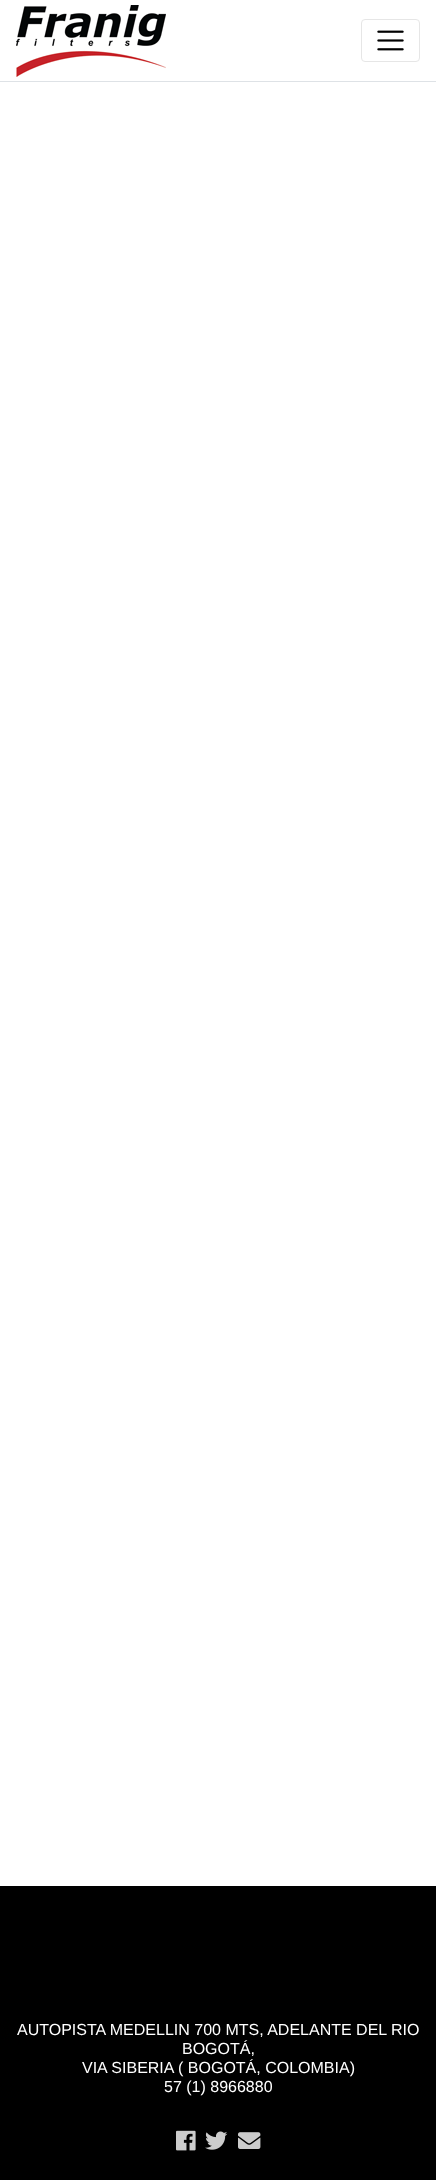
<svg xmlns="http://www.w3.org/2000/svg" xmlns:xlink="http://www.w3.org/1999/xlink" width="436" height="2180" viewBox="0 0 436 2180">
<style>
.cls-1{font:16px Liberation Sans;fill:#ffffff}
</style>
<rect width="100%" height="100%" fill="#ffffff"/>
<rect fill="#dee2e6" x="0" y="81" width="436" height="1"/>
<image xlink:href="image0.png" x="16" y="5" width="150" height="72"/>
<rect fill="none" stroke="#e6e6e6" x="361.5" y="19.5" width="58" height="42" rx="3.5"/>
<image xlink:href="image1.png" x="377" y="30" width="27" height="21"/>
<rect fill="#000000" x="0" y="1886" width="436" height="294"/>
<image xlink:href="image2.png" x="176" y="2130" width="20" height="21"/>
<image xlink:href="image3.png" x="205" y="2131" width="23" height="19"/>
<image xlink:href="image4.png" x="238" y="2132" width="23" height="17"/>
<text class="cls-1" x="17" y="2035">AUTOPISTA MEDELLIN 700 MTS, ADELANTE DEL RIO</text>
<text class="cls-1" x="182" y="2054">BOGOTÁ,</text>
<text class="cls-1" x="82" y="2073">VIA SIBERIA ( BOGOTÁ, COLOMBIA)</text>
<text class="cls-1" x="164" y="2092">57 (1) 8966880</text>
</svg>
